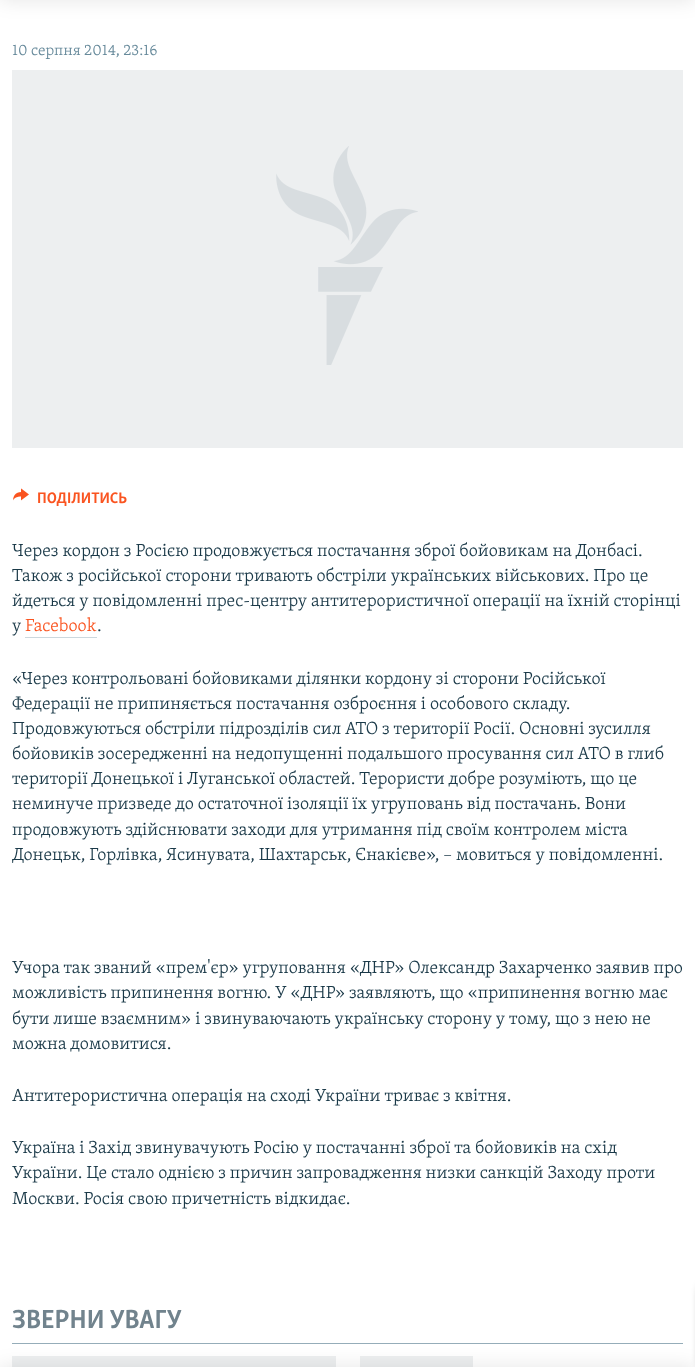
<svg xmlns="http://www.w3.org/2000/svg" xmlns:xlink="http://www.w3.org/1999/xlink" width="695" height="1367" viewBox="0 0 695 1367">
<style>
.cls-1{font:300 15.75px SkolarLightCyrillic;fill:#678a9b}
.cls-2{font:bold 15.75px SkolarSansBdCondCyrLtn;fill:#fa5420}
.cls-3{font:300 18px SkolarLightCyrillic;fill:#1a3948}
.cls-4{font:300 18px SkolarLightCyrillic;fill:#fa5420}
.cls-5{font:bold 27px SkolarSansBdCondCyrLtn;fill:#71838d}
</style>
<rect width="100%" height="100%" fill="#ffffff"/>
<rect fill="#000000" fill-opacity="0.1" filter="blur(10px)" x="0" y="-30" width="695" height="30"/>
<rect fill="#95adb9" x="12" y="1343" width="671" height="1"/>
<rect fill="#edeff0" x="12" y="1356" width="324" height="11"/>
<rect fill="#edeff0" x="360" y="1356" width="113" height="11"/>
<rect fill="#000000" fill-opacity="0.1" filter="blur(10px)" x="0" y="1367" width="695" height="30"/>
<rect fill="#edeff0" x="12" y="70" width="671" height="378"/>
<image xlink:href="image0.png" x="276" y="146" width="142" height="219"/>
<image xlink:href="image1.png" x="13" y="488" width="16" height="13"/>
<rect fill="#ccd8de" x="25" y="637" width="72" height="1"/>
<rect fill="#000000" fill-opacity="0.85" filter="blur(5px)" x="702" y="1286" width="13" height="81" rx="5"/>
<text class="cls-1" x="12" y="55">10 серпня 2014, 23:16</text>
<text class="cls-2" x="37" y="503">ПОДІЛИТИСЬ</text>
<text class="cls-3"><tspan x="12" y="556">Через кордон з Росією продовжується постачання зброї бойовикам на Донбасі.</tspan><tspan x="12" y="581">Також з російської сторони тривають обстріли українських військових. Про це</tspan><tspan x="12" y="606">йдеться у повідомленні прес-центру антитерористичної операції на їхній сторінці</tspan><tspan x="12" y="631">у</tspan></text>
<text class="cls-4" x="25" y="631">Facebook</text>
<text class="cls-3" x="97" y="631">.</text>
<text class="cls-3"><tspan x="12" y="684">«Через контрольовані бойовиками ділянки кордону зі сторони Російської</tspan><tspan x="12" y="709">Федерації не припиняється постачання озброєння і особового складу.</tspan><tspan x="12" y="734">Продовжуються обстріли підрозділів сил АТО з території Росії. Основні зусилля</tspan><tspan x="12" y="759">бойовиків зосередженні на недопущенні подальшого просування сил АТО в глиб</tspan><tspan x="12" y="784">території Донецької і Луганської областей. Терористи добре розуміють, що це</tspan><tspan x="12" y="809">неминуче призведе до остаточної ізоляції їх угруповань від постачань. Вони</tspan><tspan x="12" y="835">продовжують здійснювати заходи для утримання під своїм контролем міста</tspan><tspan x="12" y="860">Донецьк, Горлівка, Ясинувата, Шахтарськ, Єнакієве», – мовиться у повідомленні.</tspan></text>
<text class="cls-3"><tspan x="12" y="973">Учора так званий «прем'єр» угруповання «ДНР» Олександр Захарченко заявив про</tspan><tspan x="12" y="998">можливість припинення вогню. У «ДНР» заявляють, що «припинення вогню має</tspan><tspan x="12" y="1024">бути лише взаємним» і звинуваючають українську сторону у тому, що з нею не</tspan><tspan x="12" y="1049">можна домовитися.</tspan></text>
<text class="cls-3" x="12" y="1101">Антитерористична операція на сході України триває з квітня.</text>
<text class="cls-3"><tspan x="12" y="1153">Україна і Захід звинувачують Росію у постачанні зброї та бойовиків на схід</tspan><tspan x="12" y="1178">України. Це стало однією з причин запровадження низки санкцій Заходу проти</tspan><tspan x="12" y="1204">Москви. Росія свою причетність відкидає.</tspan></text>
<text class="cls-5" x="12" y="1328">ЗВЕРНИ УВАГУ</text>
</svg>
